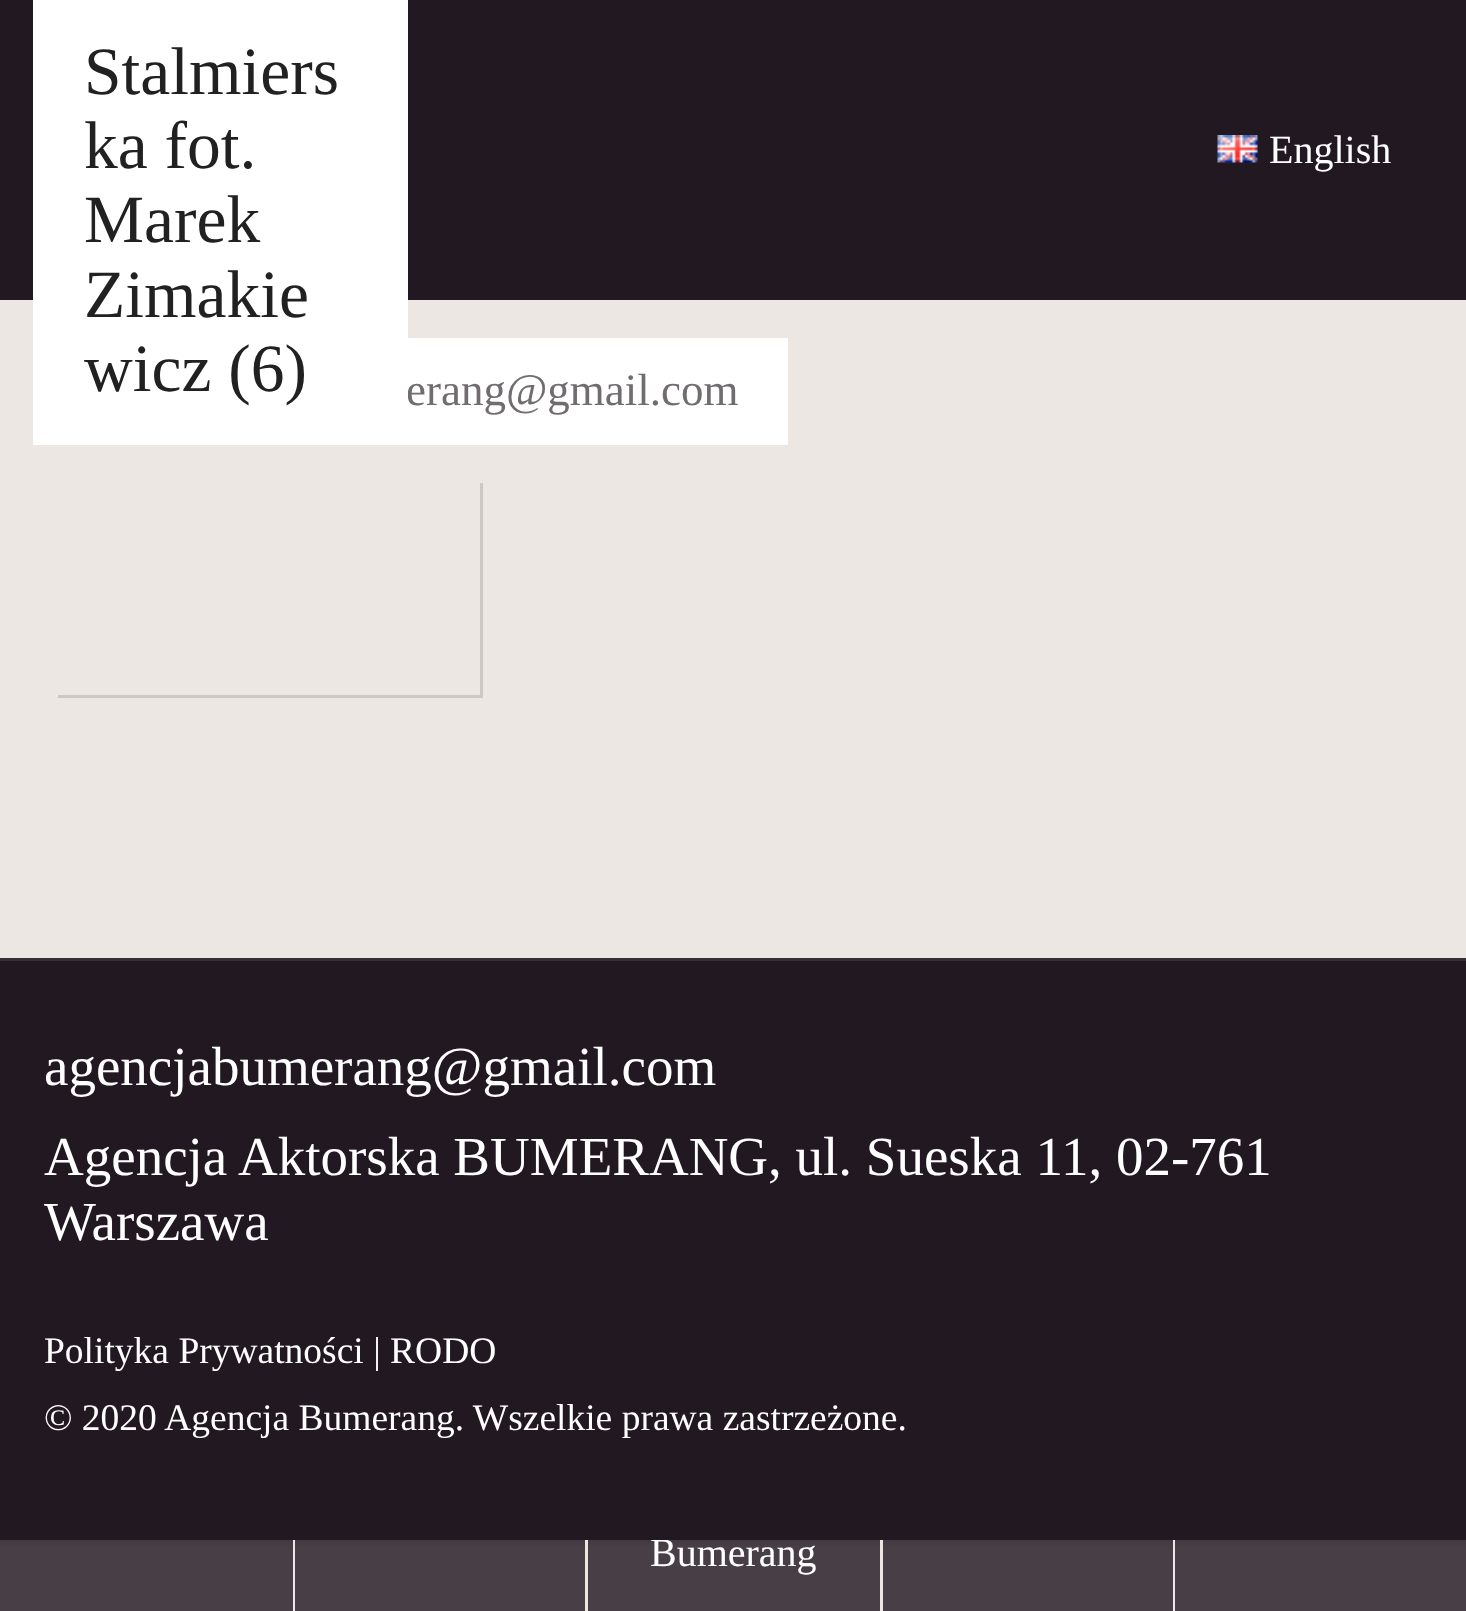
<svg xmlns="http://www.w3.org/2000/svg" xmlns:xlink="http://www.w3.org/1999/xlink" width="1466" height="1611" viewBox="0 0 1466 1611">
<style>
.cls-1{font:45px Liberation Serif;fill:#706c70}
.cls-2{font:67.5px Liberation Serif;fill:#222122}
.cls-3{font:40px Liberation Serif;fill:#ffffff}
.cls-4{font:37.5px Liberation Serif;fill:#ffffff}
.cls-5{font:55px Liberation Serif;fill:#ffffff}
</style>
<defs>
<linearGradient id="g1" gradientUnits="userSpaceOnUse" x1="146" y1="1450" x2="146" y2="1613"><stop offset="0.1" stop-color="#170f16"/><stop offset="0.6" stop-color="#483f46"/></linearGradient>
<linearGradient id="g2" gradientUnits="userSpaceOnUse" x1="440" y1="1450" x2="440" y2="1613"><stop offset="0.1" stop-color="#170f16"/><stop offset="0.6" stop-color="#483f46"/></linearGradient>
<linearGradient id="g3" gradientUnits="userSpaceOnUse" x1="734" y1="1450" x2="734" y2="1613"><stop offset="0.1" stop-color="#170f16"/><stop offset="0.6" stop-color="#483f46"/></linearGradient>
<linearGradient id="g4" gradientUnits="userSpaceOnUse" x1="1028" y1="1450" x2="1028" y2="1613"><stop offset="0.1" stop-color="#170f16"/><stop offset="0.6" stop-color="#483f46"/></linearGradient>
<linearGradient id="g5" gradientUnits="userSpaceOnUse" x1="1321" y1="1450" x2="1321" y2="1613"><stop offset="0.1" stop-color="#170f16"/><stop offset="0.6" stop-color="#483f46"/></linearGradient>
</defs>
<rect width="100%" height="100%" fill="#ede7e3"/>
<rect fill="#cec8c4" x="480" y="483" width="3" height="215"/>
<rect fill="#cec8c4" x="58" y="695" width="425" height="3"/>
<rect fill="#ffffff" x="408" y="338" width="380" height="107"/>
<rect fill="#382f37" x="0" y="958" width="1466" height="3"/>
<rect fill="#221821" x="0" y="0" width="1466" height="300"/>
<image xlink:href="image0.png" x="1217" y="135" width="41" height="28"/>
<rect fill="url(#g1)" x="0" y="1540" width="293" height="71"/>
<rect fill="url(#g2)" x="295" y="1540" width="290" height="71"/>
<rect fill="url(#g3)" x="588" y="1540" width="292" height="71"/>
<rect fill="url(#g4)" x="883" y="1540" width="290" height="71"/>
<rect fill="url(#g5)" x="1175" y="1540" width="291" height="71"/>
<text class="cls-1" x="406" y="405">erang@gmail.com</text>
<rect fill="#ffffff" x="33" y="0" width="375" height="445"/>
<text class="cls-2" x="84" y="391">wicz (6)</text>
<text class="cls-2" x="84" y="317">Zimakie</text>
<text class="cls-2" x="84" y="242">Marek</text>
<text class="cls-2" x="84" y="168">ka fot.</text>
<text class="cls-2" x="84" y="94">Stalmiers</text>
<text class="cls-3" x="1269" y="163">English</text>
<text class="cls-3" x="650" y="1566">Bumerang</text>
<rect fill="#221821" x="0" y="961" width="1466" height="579"/>
<text class="cls-4" x="44" y="1430">© 2020 Agencja Bumerang. Wszelkie prawa zastrzeżone.</text>
<text class="cls-4" x="44" y="1363">Polityka Prywatności | RODO</text>
<text class="cls-5" x="44" y="1240">Warszawa</text>
<text class="cls-5" x="44" y="1175">Agencja Aktorska BUMERANG, ul. Sueska 11, 02-761</text>
<text class="cls-5" x="44" y="1085">agencjabumerang@gmail.com</text>
</svg>
